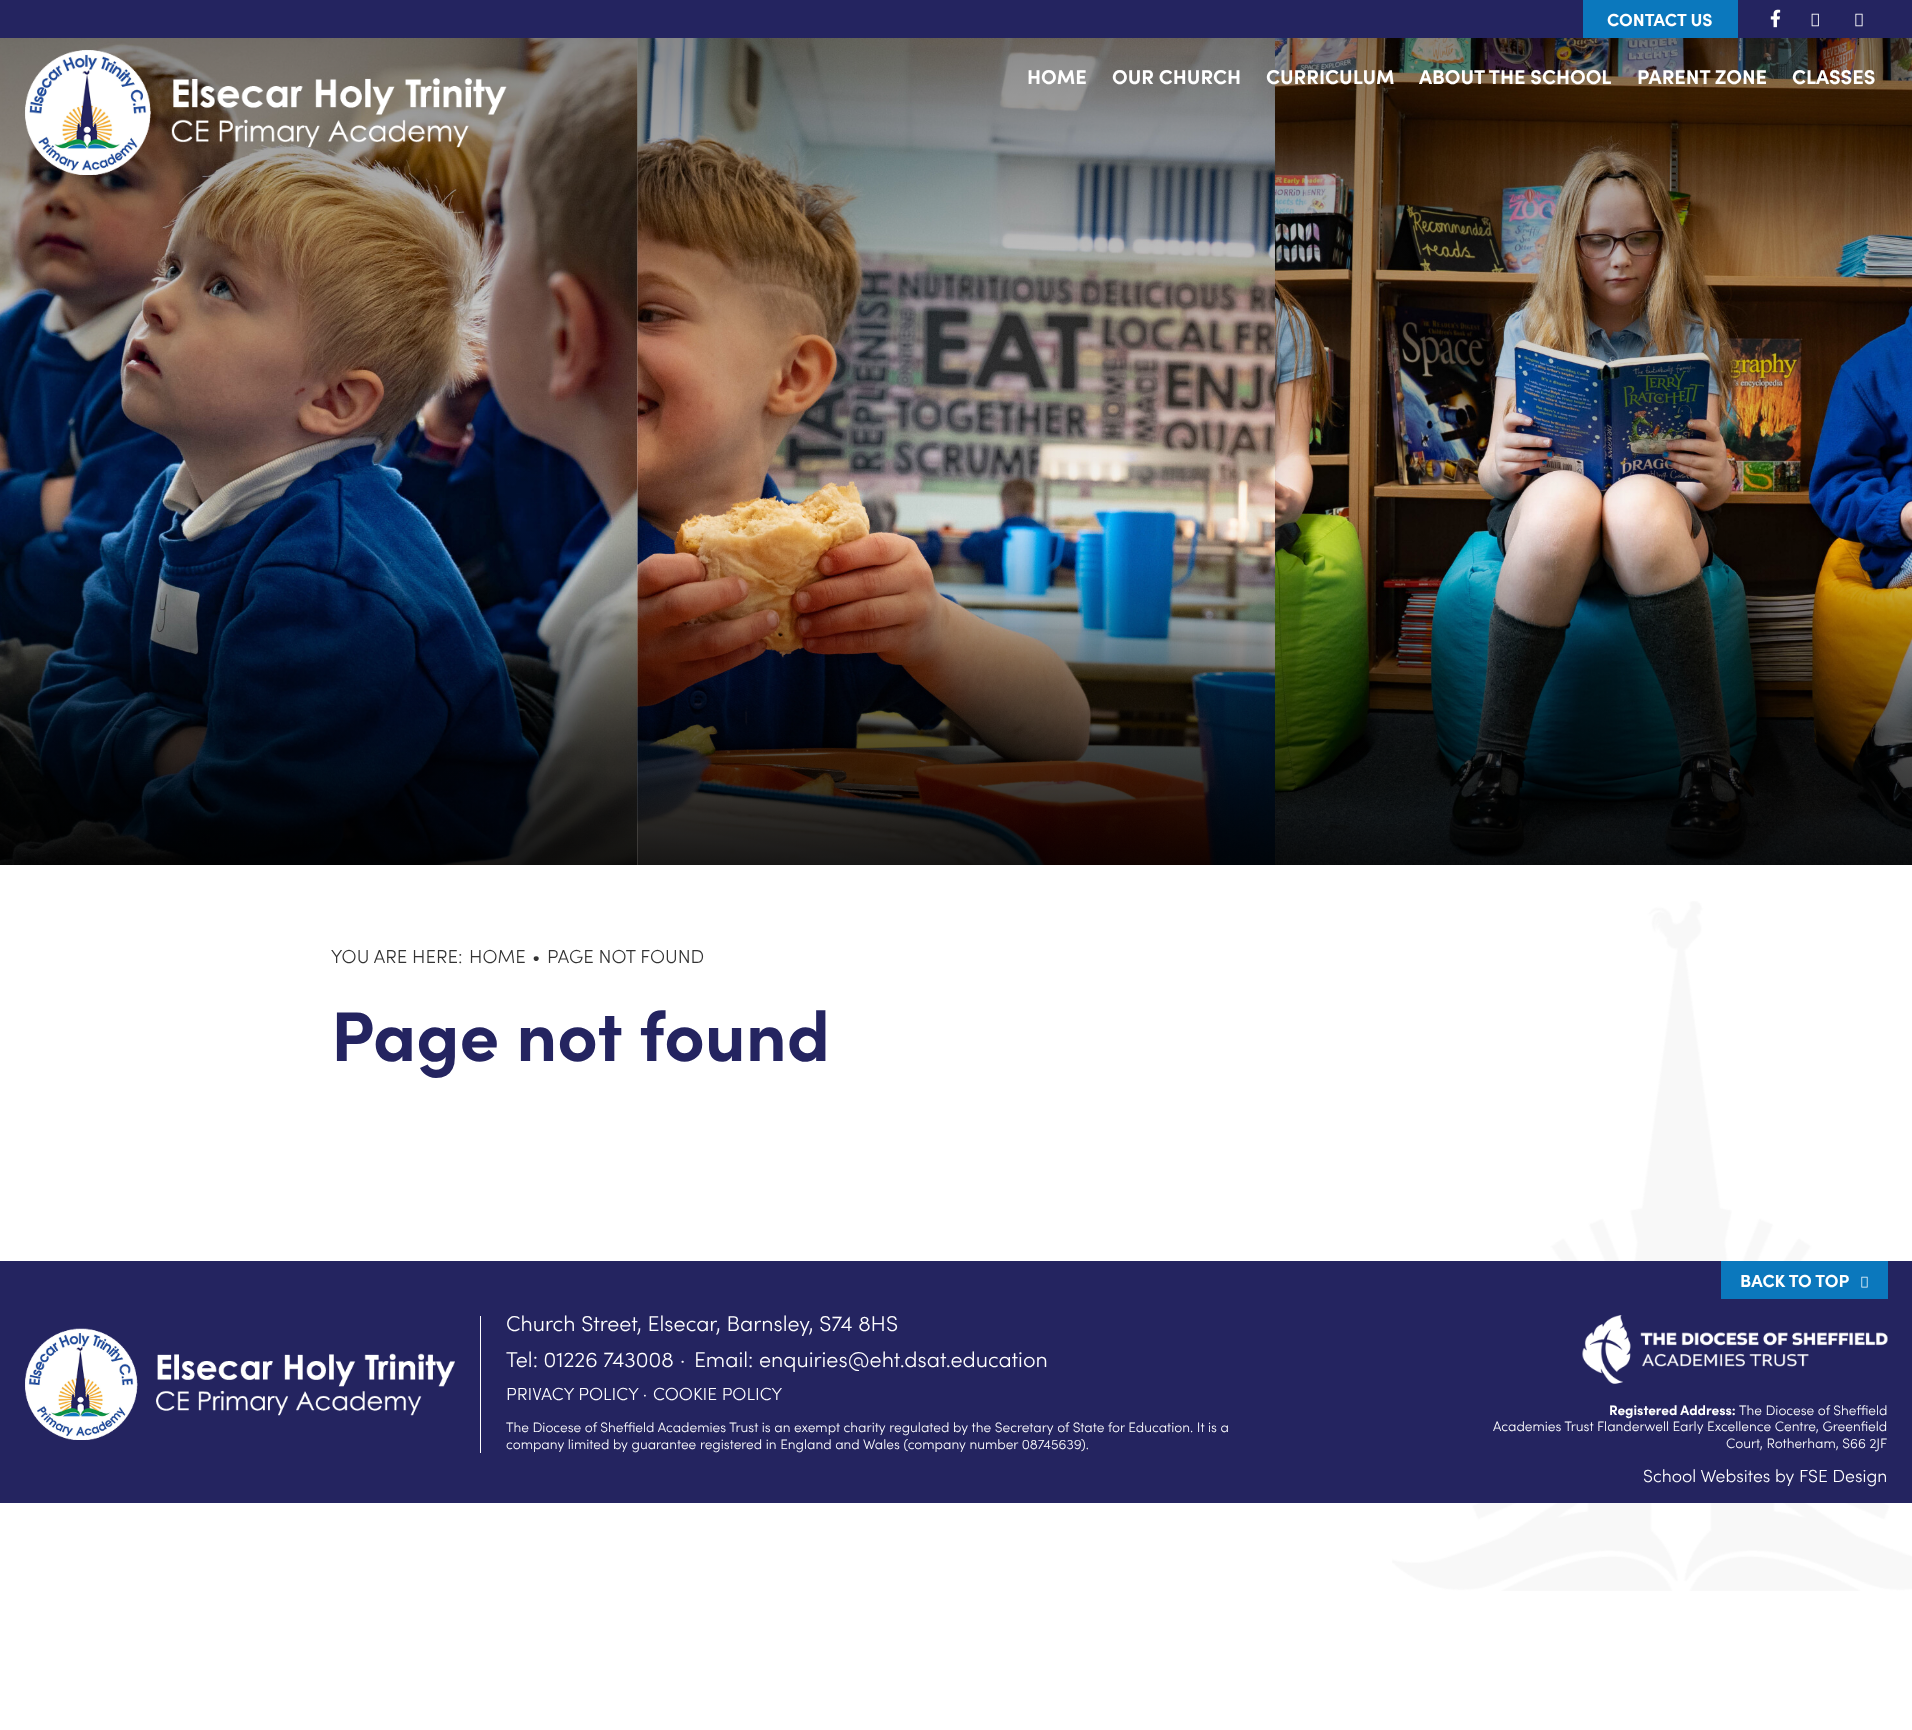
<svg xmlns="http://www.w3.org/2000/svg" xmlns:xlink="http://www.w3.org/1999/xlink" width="1912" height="1730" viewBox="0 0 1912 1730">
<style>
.cls-1{font:bold 17.5px Sofia;fill:#ffffff}
.cls-2{font:bold 20px Sofia;fill:#ffffff}
.cls-3{font:300 18.75px Sofia;fill:#333333}
.cls-4{font:bold 70.5px Sofia;fill:#242460}
.cls-5{font:300 21.5px Sofia;fill:#ffffff}
.cls-6{font:300 17.6px Sofia;fill:#ffffff}
.cls-7{font:300 13.68px Sofia;fill:#ffffff}
.cls-8{font:bold 13.68px Sofia;fill:#ffffff}
</style>
<defs>
<linearGradient id="g1" gradientUnits="userSpaceOnUse" x1="956" y1="865" x2="956" y2="0"><stop offset="0" stop-color="#000000" stop-opacity="0.5"/><stop offset="0.35" stop-color="#000000" stop-opacity="0"/><stop offset="0.4" stop-color="#000000" stop-opacity="0"/><stop offset="1" stop-color="#000000" stop-opacity="0.5"/></linearGradient>
</defs>
<rect width="100%" height="100%" fill="#ffffff"/>
<rect fill="#242460" x="0" y="0" width="1912" height="38"/>
<rect fill="#0b78bd" x="1583" y="0" width="155" height="38"/>
<image xlink:href="image0.png" x="1770" y="9" width="11" height="19"/>
<image xlink:href="image1.png" x="1811" y="13" width="8" height="14"/>
<image xlink:href="image2.png" x="1855" y="13" width="8" height="14"/>
<image xlink:href="image4.png" x="0" y="38" width="638" height="827"/>
<image xlink:href="image5.png" x="637" y="38" width="638" height="827"/>
<image xlink:href="image6.png" x="1275" y="38" width="637" height="827"/>
<rect fill="url(#g1)" x="0" y="38" width="1912" height="827"/>
<image xlink:href="image3.png" x="25" y="50" width="482" height="125"/>
<image xlink:href="image7.png" x="1392" y="901" width="520" height="690"/>
<rect fill="#242460" x="0" y="1261" width="1912" height="242"/>
<rect fill="#ffffff" x="480" y="1316" width="1" height="137"/>
<image xlink:href="image8.png" x="25" y="1328" width="430" height="112"/>
<rect fill="#0b78bd" x="1721" y="1261" width="167" height="38"/>
<image xlink:href="image9.png" x="1861" y="1276" width="7" height="12"/>
<image xlink:href="image10.png" x="1582" y="1315" width="306" height="69"/>
<text class="cls-1" x="1607" y="26">CONTACT US</text>
<text class="cls-2" x="1027" y="84">HOME</text>
<text class="cls-2" x="1112" y="84">OUR CHURCH</text>
<text class="cls-2" x="1266" y="84">CURRICULUM</text>
<text class="cls-2" x="1419" y="84">ABOUT THE SCHOOL</text>
<text class="cls-2" x="1637" y="84">PARENT ZONE</text>
<text class="cls-2" x="1792" y="84">CLASSES</text>
<text class="cls-3" x="331" y="963">YOU ARE HERE:</text>
<text class="cls-3" x="469" y="963">HOME</text>
<text class="cls-3" x="532" y="963">•</text>
<text class="cls-3" x="547" y="963">PAGE NOT FOUND</text>
<text class="cls-4" x="331" y="1061">Page not found</text>
<text class="cls-5"><tspan x="506" y="1331">Church Street, Elsecar, Barnsley, S74 8HS</tspan><tspan x="506" y="1367">Tel: 01226 743008</tspan></text>
<text class="cls-5" x="680" y="1367">·</text>
<text class="cls-5" x="694" y="1367">Email: enquiries@eht.dsat.education</text>
<text class="cls-6" x="506" y="1400">PRIVACY POLICY ·</text>
<text class="cls-6" x="653" y="1400">COOKIE POLICY</text>
<text class="cls-7"><tspan x="506" y="1432">The Diocese of Sheffield Academies Trust is an exempt charity regulated by the Secretary of State for Education. It is a</tspan><tspan x="506" y="1449">company limited by guarantee registered in England and Wales (company number 08745639).</tspan></text>
<text class="cls-1" x="1740" y="1287">BACK TO TOP</text>
<text class="cls-8" x="1609" y="1415">Registered Address:</text>
<text class="cls-7" x="1739" y="1415">The Diocese of Sheffield</text>
<text class="cls-7" x="1493" y="1431">Academies Trust Flanderwell Early Excellence Centre, Greenfield</text>
<text class="cls-7" x="1726" y="1448">Court, Rotherham, S66 2JF</text>
<text class="cls-6" x="1643" y="1482">School Websites by FSE Design</text>
</svg>
